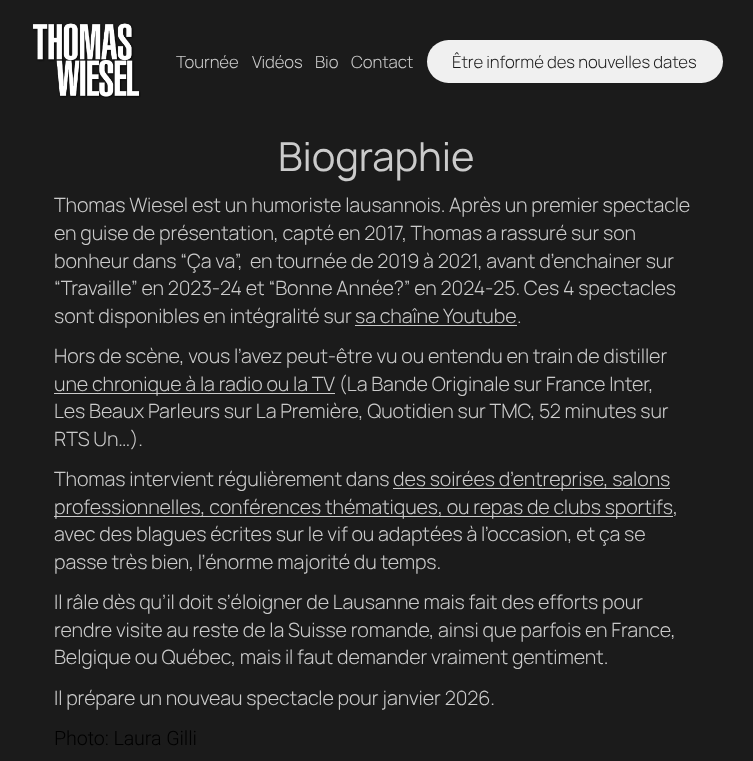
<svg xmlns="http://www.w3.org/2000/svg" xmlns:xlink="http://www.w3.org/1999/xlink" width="753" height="761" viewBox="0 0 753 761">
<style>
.cls-1{font:300 16.8px Manrope;letter-spacing:-0.1px;fill:#cbcbcb}
.cls-2{font:300 16.8px Manrope;letter-spacing:-0.1px;fill:#1b1b1b}
.cls-3{font:40px Manrope;letter-spacing:-0.1px;fill:#cbcbcb}
.cls-4{font:300 19.7px Manrope;letter-spacing:-0.1px;fill:#cbcbcb}
.cls-5{font:300 19.7px Roboto;letter-spacing:-0.1px;fill:#000000}
</style>
<rect width="100%" height="100%" fill="#1b1b1b"/>
<image xlink:href="image0.png" x="32" y="23" width="109" height="75"/>
<rect fill="#f0f0f0" x="427" y="40" width="296" height="43" rx="21.5"/>
<rect fill="#cbcbcb" x="355" y="325" width="162" height="1"/>
<rect fill="#cbcbcb" x="54" y="393" width="281" height="1"/>
<rect fill="#cbcbcb" x="393" y="488" width="277" height="1"/>
<rect fill="#cbcbcb" x="54" y="516" width="619" height="1"/>
<text class="cls-1" x="176" y="68">Tournée</text>
<text class="cls-1" x="252" y="68">Vidéos</text>
<text class="cls-1" x="315" y="68">Bio</text>
<text class="cls-1" x="351" y="68">Contact</text>
<text class="cls-2" x="452" y="68">Être informé des nouvelles dates</text>
<text class="cls-3" x="278" y="171">Biographie</text>
<text class="cls-4"><tspan x="54" y="212">Thomas Wiesel est un humoriste lausannois. Après un premier spectacle</tspan><tspan x="54" y="240">en guise de présentation, capté en 2017, Thomas a rassuré sur son</tspan><tspan x="54" y="268">bonheur dans “Ça va”,</tspan></text>
<text class="cls-4" x="250" y="268">en tournée de 2019 à 2021, avant d’enchainer sur</text>
<text class="cls-4"><tspan x="54" y="295">“Travaille” en 2023-24 et “Bonne Année?” en 2024-25. Ces 4 spectacles</tspan><tspan x="54" y="323">sont disponibles en intégralité sur</tspan></text>
<text class="cls-4" x="355" y="323">sa chaîne Youtube</text>
<text class="cls-4" x="517" y="323">.</text>
<text class="cls-4"><tspan x="54" y="363">Hors de scène, vous l’avez peut-être vu ou entendu en train de distiller</tspan><tspan x="54" y="391">une chronique à la radio ou la TV (La Bande Originale sur France Inter,</tspan><tspan x="54" y="418">Les Beaux Parleurs sur La Première, Quotidien sur TMC, 52 minutes sur</tspan><tspan x="54" y="446">RTS Un…).</tspan></text>
<text class="cls-4" x="54" y="486">Thomas intervient régulièrement dans</text>
<text class="cls-4" x="393" y="486">des soirées d’entreprise, salons</text>
<text class="cls-4"><tspan x="54" y="514">professionnelles, conférences thématiques, ou repas de clubs sportifs,</tspan><tspan x="54" y="541">avec des blagues écrites sur le vif ou adaptées à l’occasion, et ça se</tspan><tspan x="54" y="569">passe très bien, l’énorme majorité du temps.</tspan></text>
<text class="cls-4"><tspan x="54" y="609">Il râle dès qu’il doit s’éloigner de Lausanne mais fait des efforts pour</tspan><tspan x="54" y="637">rendre visite au reste de la Suisse romande, ainsi que parfois en France,</tspan><tspan x="54" y="664">Belgique ou Québec, mais il faut demander vraiment gentiment.</tspan></text>
<text class="cls-4" x="54" y="705">Il prépare un nouveau spectacle pour janvier 2026.</text>
<text class="cls-5" x="54" y="745">Photo: Laura Gilli</text>
</svg>
